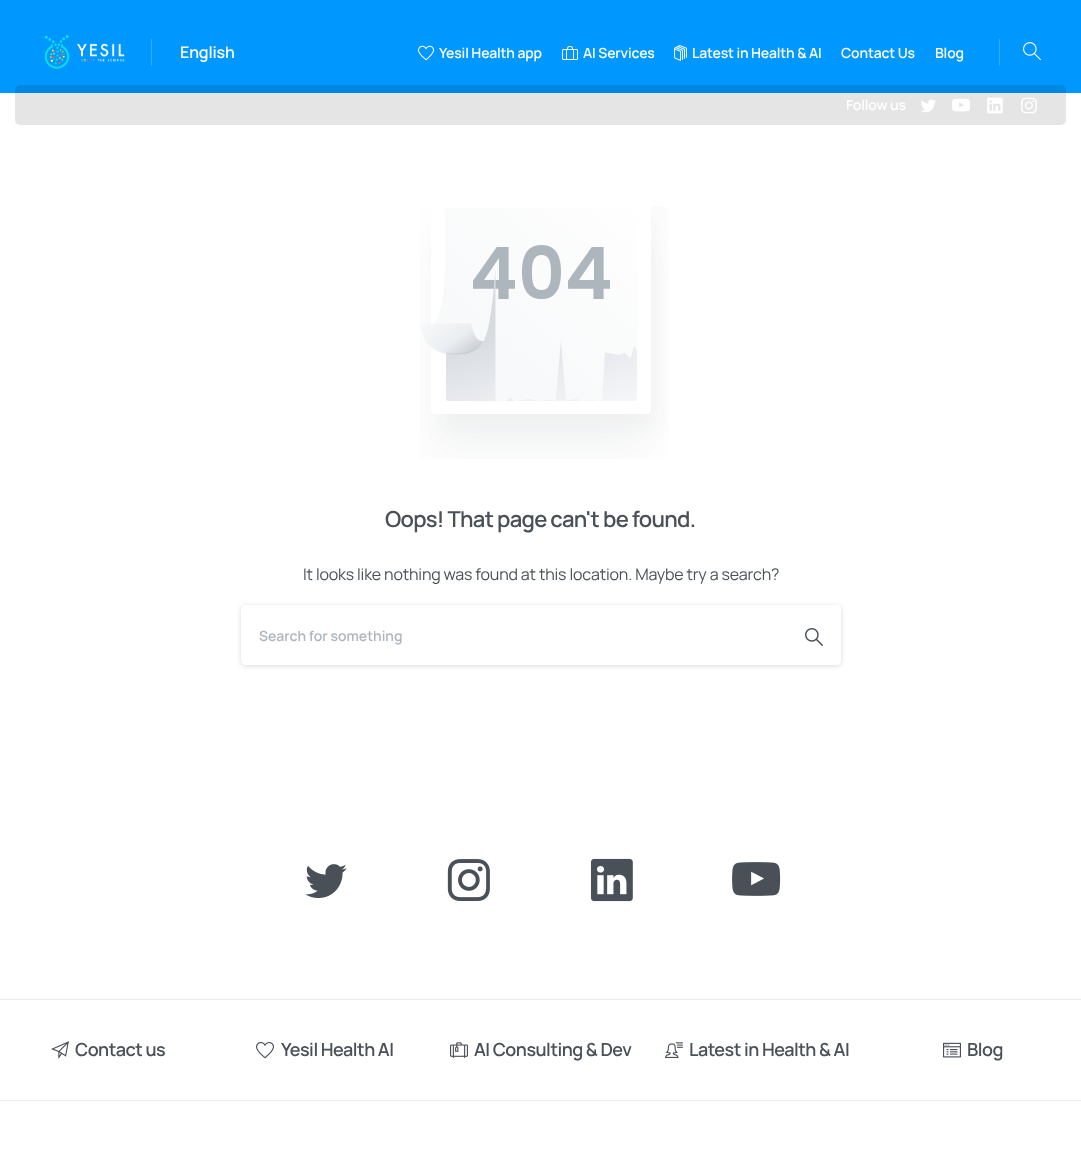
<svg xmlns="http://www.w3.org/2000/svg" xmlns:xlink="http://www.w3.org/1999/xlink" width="1081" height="1150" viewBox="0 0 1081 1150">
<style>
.cls-1{font:600 16px Manrope;letter-spacing:-0.15px;fill:#ffffff}
.cls-2{font:600 14px Manrope;letter-spacing:-0.15px;fill:#ffffff}
.cls-3{font:600 22px Manrope;letter-spacing:-0.7px;fill:#495057}
.cls-4{font:16px Manrope;letter-spacing:-0.15px;fill:#495057}
.cls-5{font:600 14px Manrope;fill:#adb5bd}
.cls-6{font:600 18px Manrope;letter-spacing:-0.5px;fill:#495057}
</style>
<rect width="100%" height="100%" fill="#ffffff"/>
<rect fill="#0097ff" x="0" y="0" width="1081" height="93"/>
<image xlink:href="image0.png" x="44" y="35" width="81" height="34"/>
<rect fill="#33acff" x="151" y="39" width="1" height="27"/>
<image xlink:href="image1.png" x="418" y="45" width="16" height="16"/>
<image xlink:href="image2.png" x="562" y="46" width="16" height="14"/>
<image xlink:href="image3.png" x="674" y="45" width="13" height="16"/>
<rect fill="#33acff" x="999" y="39" width="1" height="27"/>
<image xlink:href="image4.png" x="1023" y="42" width="18" height="19"/>
<rect fill="#000000" fill-opacity="0.1" x="15" y="85" width="1051" height="40" rx="5"/>
<image xlink:href="image5.png" x="921" y="99" width="15" height="14"/>
<image xlink:href="image6.png" x="952" y="98" width="18" height="14"/>
<image xlink:href="image7.png" x="987" y="97" width="16" height="17"/>
<image xlink:href="image8.png" x="1021" y="97" width="16" height="17"/>
<image xlink:href="image9.png" x="420" y="206" width="249" height="253"/>
<rect fill="#000000" fill-opacity="0.15" filter="blur(2.5px)" x="241" y="606" width="600" height="60" rx="5"/>
<path fill="#ffffff" d="M246 605H787V665H246C243 665 241 663 241 660V610C241 607 243 605 246 605Z"/>
<path fill="#ffffff" d="M787 605H837C839 605 841 607 841 609V661C841 663 839 665 837 665H787Z"/>
<image xlink:href="image10.png" x="805" y="628" width="18" height="18"/>
<image xlink:href="image11.png" x="305" y="864" width="42" height="34"/>
<image xlink:href="image12.png" x="447" y="859" width="43" height="42"/>
<image xlink:href="image13.png" x="590" y="858" width="43" height="44"/>
<image xlink:href="image14.png" x="732" y="862" width="49" height="34"/>
<rect fill="#eaecef" x="0" y="999" width="1081" height="1"/>
<rect fill="#eaecef" x="0" y="1100" width="1081" height="1"/>
<image xlink:href="image15.png" x="51" y="1041" width="18" height="18"/>
<image xlink:href="image16.png" x="256" y="1042" width="18" height="17"/>
<image xlink:href="image17.png" x="450" y="1042" width="18" height="16"/>
<image xlink:href="image18.png" x="665" y="1042" width="18" height="16"/>
<image xlink:href="image19.png" x="943" y="1042" width="18" height="16"/>
<text class="cls-1" x="180" y="58">English</text>
<text class="cls-2" x="439" y="58">Yesil Health app</text>
<text class="cls-2" x="583" y="58">AI Services</text>
<text class="cls-2" x="692" y="58">Latest in Health &amp; AI</text>
<text class="cls-2" x="841" y="58">Contact Us</text>
<text class="cls-2" x="935" y="58">Blog</text>
<text class="cls-2" x="846" y="110">Follow us</text>
<text class="cls-3" x="385" y="527">Oops! That page can't</text>
<text class="cls-3" x="603" y="527">be found.</text>
<text class="cls-4" x="303" y="580">It looks like nothing was found at this location. Maybe try a search?</text>
<text class="cls-5" x="259" y="641">Search for something</text>
<text class="cls-6" x="75" y="1056">Contact us</text>
<text class="cls-6" x="281" y="1056">Yesil Health AI</text>
<text class="cls-6" x="474" y="1056">AI Consulting &amp; Dev</text>
<text class="cls-6" x="689" y="1056">Latest in Health &amp; AI</text>
<text class="cls-6" x="967" y="1056">Blog</text>
</svg>
